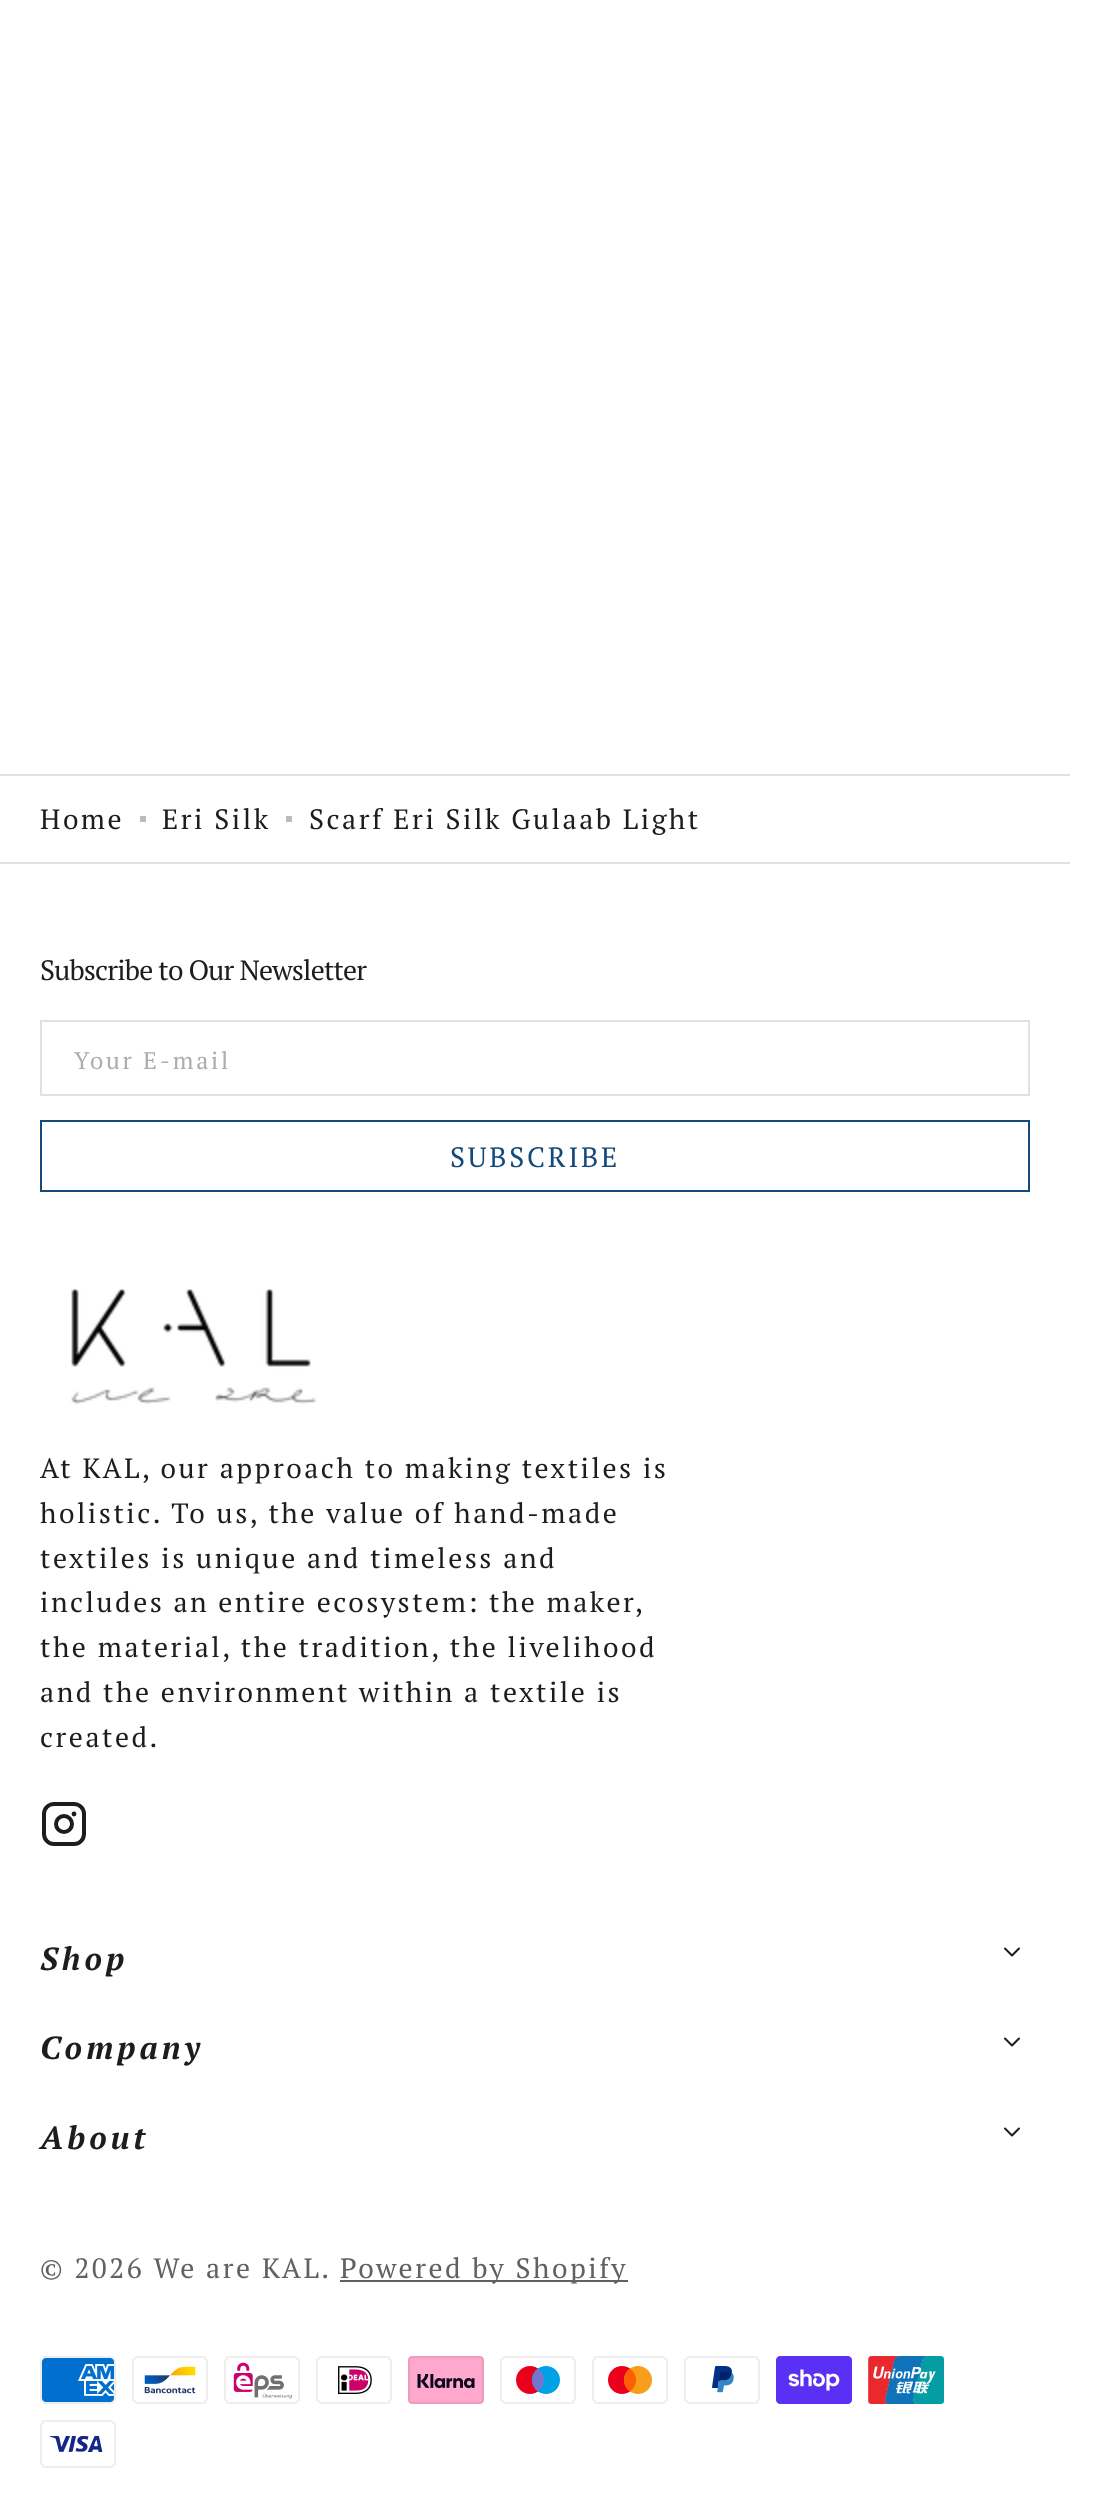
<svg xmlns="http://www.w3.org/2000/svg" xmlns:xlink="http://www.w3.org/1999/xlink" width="1099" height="2516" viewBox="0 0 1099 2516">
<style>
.cls-1{font:28px PT Serif;letter-spacing:2.5px;fill:#1c1d1d}
.cls-2{font:28px PT Serif;letter-spacing:-0.85px;fill:#1c1d1d}
.cls-3{font:24px PT Serif;letter-spacing:2.75px;fill:#adadad}
.cls-4{font:28px PT Serif;letter-spacing:2.75px;fill:#134a7a}
.cls-5{font:italic bold 32px PT Serif;letter-spacing:4px;fill:#1c1d1d}
.cls-6{font:28px PT Serif;letter-spacing:2.5px;fill:#606161}
</style>
<rect width="100%" height="100%" fill="#ffffff"/>
<rect fill="#e1e1e1" x="0" y="774" width="1070" height="2"/>
<rect fill="#bbbbbb" x="140" y="816" width="6" height="6"/>
<rect fill="#bbbbbb" x="286" y="816" width="6" height="6"/>
<rect fill="#e1e1e1" x="0" y="862" width="1070" height="2"/>
<rect fill="none" stroke="#e1e1e1" stroke-width="2" x="41" y="1021" width="988" height="74"/>
<rect fill="none" stroke="#134a7a" stroke-width="2" x="41" y="1121" width="988" height="70"/>
<image xlink:href="image0.png" x="71" y="1288" width="246" height="116"/>
<rect fill="none" stroke="#1c1d1d" stroke-width="4" x="44" y="1804" width="40" height="40" rx="10"/>
<circle fill="none" stroke="#1c1d1d" stroke-width="4" cx="64" cy="1824" r="8"/>
<circle fill="#1c1d1d" cx="74" cy="1814" r="2.4"/>
<path fill="none" stroke="#1c1d1d" stroke-width="2" stroke-linecap="round" stroke-linejoin="round" d="M1019 1948.5L1012 1955.5L1005 1948.5"/>
<path fill="none" stroke="#1c1d1d" stroke-width="2" stroke-linecap="round" stroke-linejoin="round" d="M1019 2038.5L1012 2045.5L1005 2038.5"/>
<path fill="none" stroke="#1c1d1d" stroke-width="2" stroke-linecap="round" stroke-linejoin="round" d="M1019 2128.5L1012 2135.5L1005 2128.5"/>
<rect fill="#606161" x="340" y="2280" width="288" height="2"/>
<image xlink:href="image1.png" x="40" y="2356" width="76" height="48"/>
<image xlink:href="image2.png" x="132" y="2356" width="76" height="48"/>
<image xlink:href="image3.png" x="224" y="2356" width="76" height="48"/>
<image xlink:href="image4.png" x="316" y="2356" width="76" height="48"/>
<image xlink:href="image5.png" x="408" y="2356" width="76" height="48"/>
<image xlink:href="image6.png" x="500" y="2356" width="76" height="48"/>
<image xlink:href="image7.png" x="592" y="2356" width="76" height="48"/>
<image xlink:href="image8.png" x="684" y="2356" width="76" height="48"/>
<image xlink:href="image9.png" x="776" y="2356" width="76" height="48"/>
<image xlink:href="image10.png" x="868" y="2356" width="76" height="48"/>
<image xlink:href="image11.png" x="40" y="2420" width="76" height="48"/>
<text class="cls-1" x="40" y="829">Home</text>
<text class="cls-1" x="162" y="829">Eri Silk</text>
<text class="cls-1" x="309" y="829">Scarf Eri Silk Gulaab Light</text>
<text class="cls-2" x="40" y="980">Subscribe to Our Newsletter</text>
<text class="cls-3" x="74" y="1069">Your E-mail</text>
<text class="cls-4" x="450" y="1167">SUBSCRIBE</text>
<text class="cls-1"><tspan x="40" y="1478">At KAL, our approach to making textiles is</tspan><tspan x="40" y="1523">holistic. To us, the value of hand-made</tspan><tspan x="40" y="1568">textiles is unique and timeless and</tspan><tspan x="40" y="1612" word-spacing="-0.25">includes an entire ecosystem: the maker,</tspan><tspan x="40" y="1657">the material, the tradition, the livelihood</tspan><tspan x="40" y="1702">and the environment within a textile is</tspan><tspan x="40" y="1747">created.</tspan></text>
<text class="cls-5" x="40" y="1970">Shop</text>
<text class="cls-5" x="40" y="2059">Company</text>
<text class="cls-5" x="40" y="2149">About</text>
<text class="cls-6" x="40" y="2278">© 2026 We are KAL.</text>
<text class="cls-6" x="340" y="2278">Powered by Shopify</text>
</svg>
